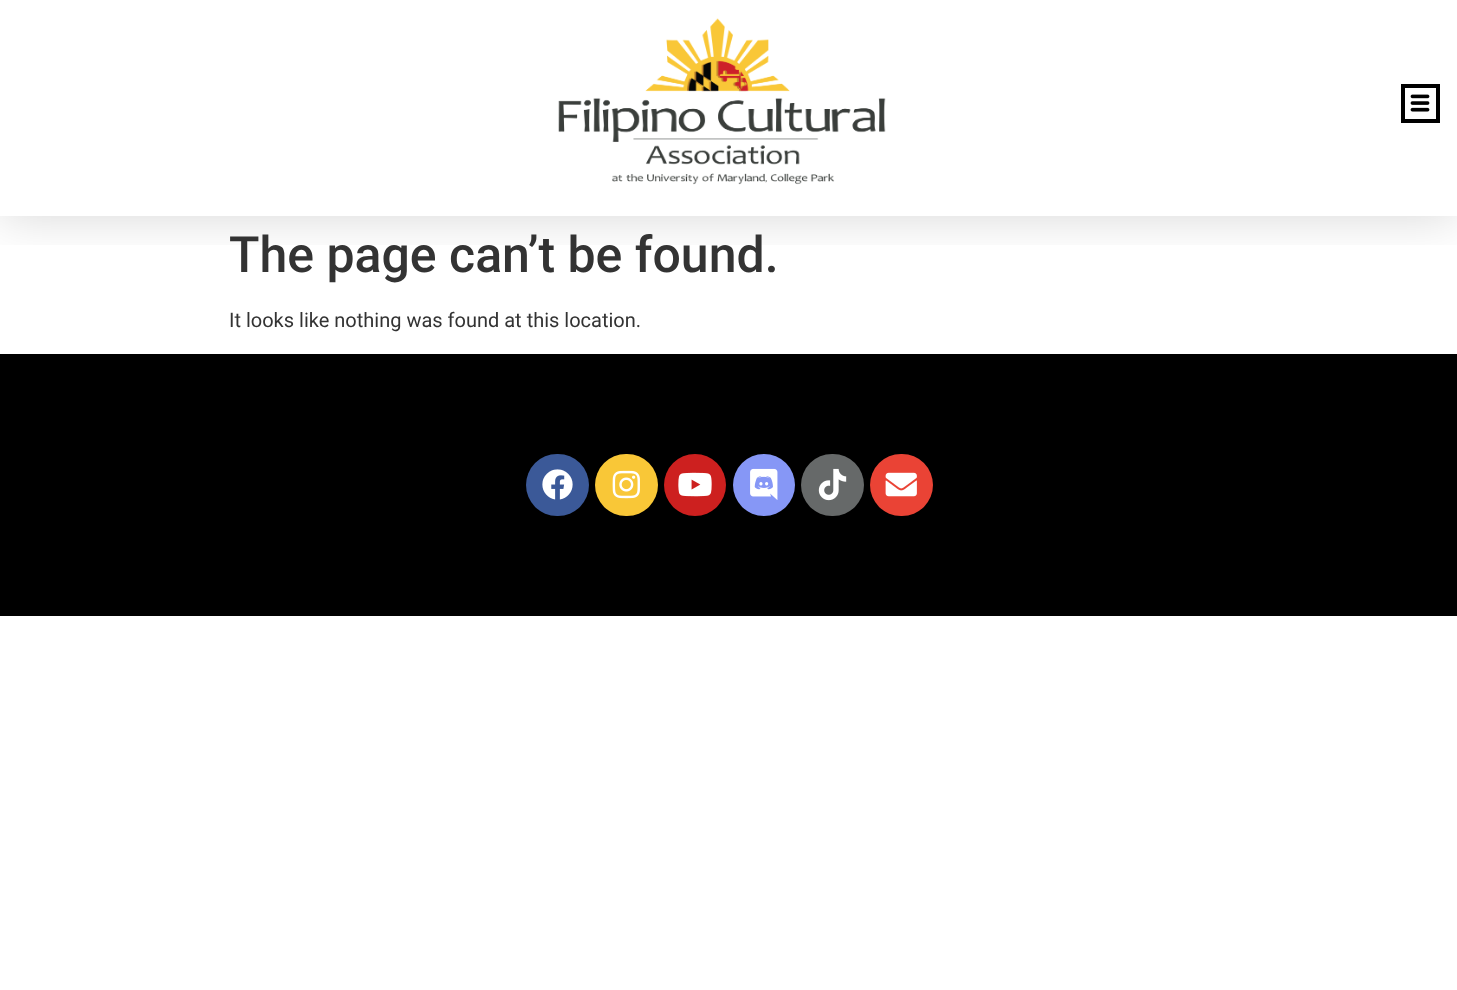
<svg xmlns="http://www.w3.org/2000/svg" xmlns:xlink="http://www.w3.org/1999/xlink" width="1457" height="990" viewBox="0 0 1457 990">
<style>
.cls-1{font:500 50px Roboto;fill:#333333}
.cls-2{font:20px Roboto;fill:#333333}
</style>
<defs>
<clipPath id="clip1"><rect x="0" y="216" width="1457" height="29"/></clipPath>
</defs>
<rect width="100%" height="100%" fill="#ffffff"/>
<g clip-path="url(#clip1)">
<rect fill="#000000" fill-opacity="0.16" filter="blur(25px)" x="0" y="0" width="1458" height="216"/>
</g>
<image xlink:href="image0.png" x="558" y="18" width="328" height="167"/>
<rect fill="none" stroke="#000000" stroke-width="4" x="1403" y="86" width="35" height="35"/>
<image xlink:href="image1.png" x="1410" y="94" width="20" height="18"/>
<rect fill="#000000" x="0" y="354" width="1457" height="262"/>
<rect fill="#3b5998" x="526" y="454" width="63" height="62" rx="31"/>
<image xlink:href="image2.png" x="542" y="469" width="31" height="31"/>
<rect fill="#f9c737" x="595" y="454" width="63" height="62" rx="31"/>
<image xlink:href="image3.png" x="612" y="470" width="28" height="29"/>
<circle fill="#cd201f" cx="695" cy="485" r="31"/>
<image xlink:href="image4.png" x="678" y="472" width="34" height="25"/>
<circle fill="#8697f6" cx="764" cy="485" r="31"/>
<image xlink:href="image5.png" x="750" y="468" width="28" height="32"/>
<rect fill="#666969" x="801" y="454" width="63" height="62" rx="31"/>
<image xlink:href="image6.png" x="818" y="468" width="29" height="33"/>
<rect fill="#ea4335" x="870" y="454" width="63" height="62" rx="31"/>
<image xlink:href="image7.png" x="885" y="472" width="32" height="25"/>
<text class="cls-1" x="229" y="272">The page can’t be found.</text>
<text class="cls-2" x="229" y="327">It looks like nothing was found at this location.</text>
</svg>
